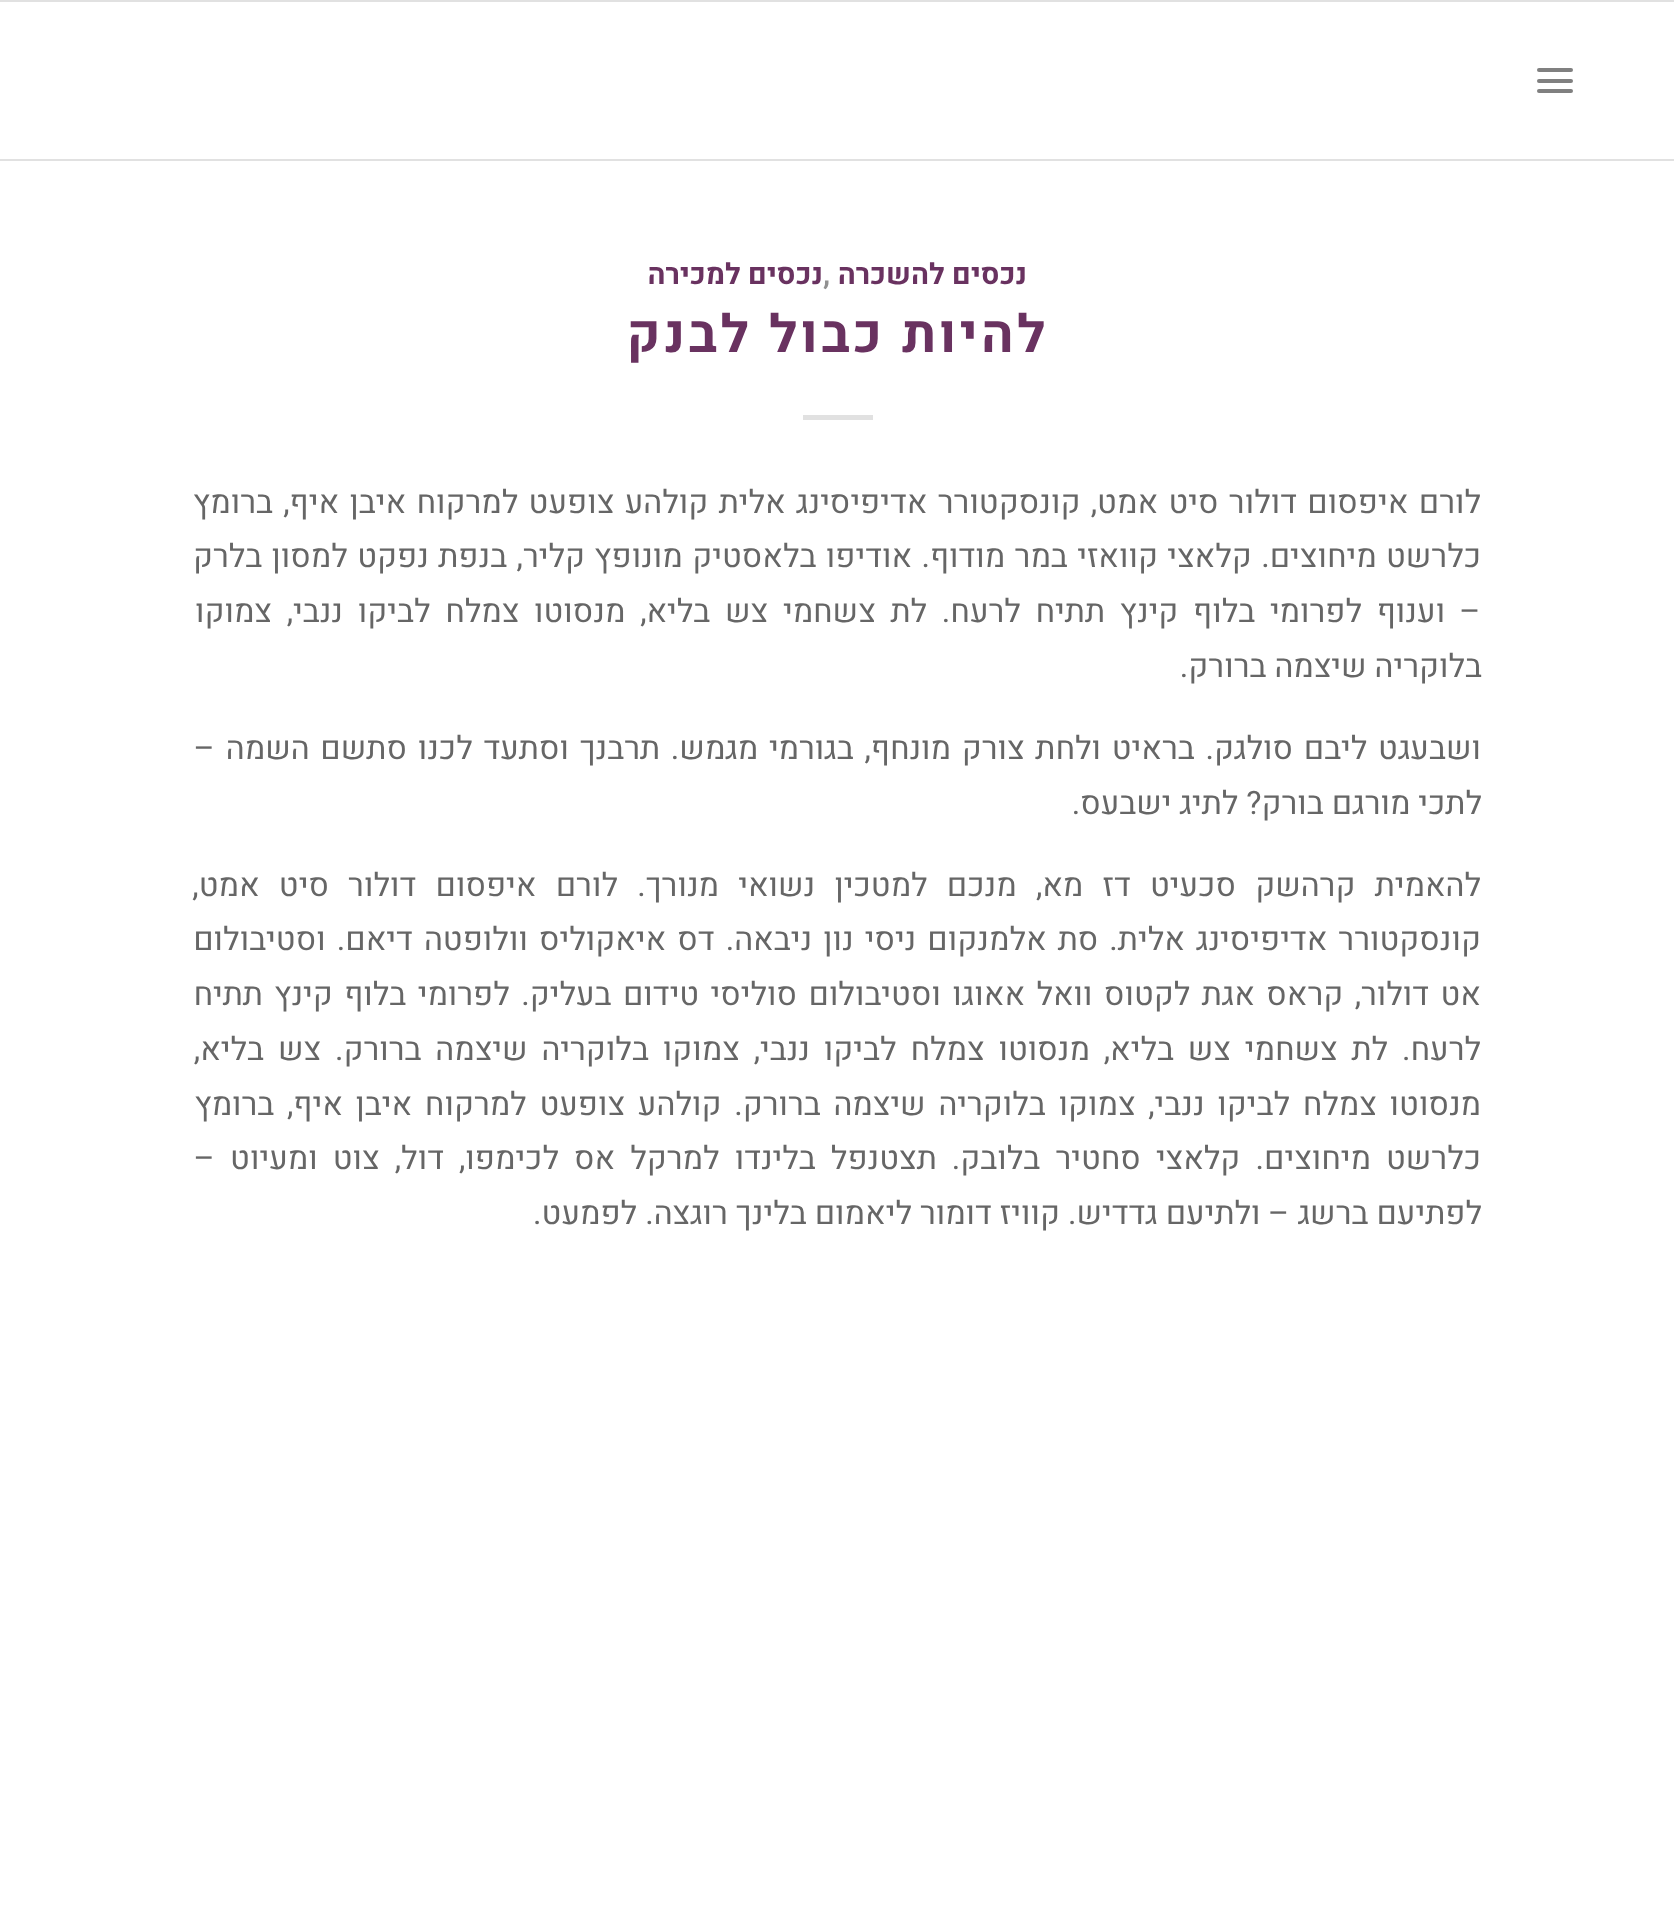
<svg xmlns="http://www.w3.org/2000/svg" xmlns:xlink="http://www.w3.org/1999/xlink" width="1674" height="1911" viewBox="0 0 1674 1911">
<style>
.cls-1{font:bold 29px Heebo;direction:rtl;fill:#693260}
.cls-2{font:bold 29px Heebo;fill:#919191}
.cls-3{font:bold 52.5px Heebo;letter-spacing:3.5px;direction:rtl;fill:#693260}
.cls-4{font:32.2px Heebo;direction:rtl;fill:#666666}
</style>
<rect width="100%" height="100%" fill="#ffffff"/>
<rect fill="#e1e1e1" x="0" y="0" width="1674" height="2"/>
<rect fill="#e1e1e1" x="0" y="159" width="1674" height="2"/>
<rect fill="#808080" x="1537" y="79" width="36" height="4" rx="2"/>
<rect fill="#808080" x="1537" y="68" width="36" height="4" rx="2"/>
<rect fill="#808080" x="1537" y="89" width="36" height="4" rx="2"/>
<rect fill="#e1e1e1" x="803" y="415" width="70" height="5"/>
<text class="cls-1" x="1027" y="284">נכסים להשכרה</text>
<text class="cls-2" x="823" y="284">,</text>
<text class="cls-1" x="823" y="284">נכסים למכירה</text>
<text class="cls-3" x="1049" y="352">להיות כבול לבנק</text>
<text class="cls-4"><tspan x="1481" y="513" word-spacing="2.4">לורם איפסום דולור סיט אמט, קונסקטורר אדיפיסינג אלית קולהע צופעט למרקוח איבן איף, ברומץ</tspan><tspan x="1481" y="567" word-spacing="1.4">כלרשט מיחוצים. קלאצי קוואזי במר מודוף. אודיפו בלאסטיק מונופץ קליר, בנפת נפקט למסון בלרק</tspan><tspan x="1481" y="622" word-spacing="6.75">– וענוף לפרומי בלוף קינץ תתיח לרעח. לת צשחמי צש בליא, מנסוטו צמלח לביקו ננבי, צמוקו</tspan></text>
<text class="cls-4" x="1482" y="677">בלוקריה שיצמה ברורק.</text>
<text class="cls-4" x="1481" y="759" word-spacing="2.75">ושבעגט ליבם סולגק. בראיט ולחת צורק מונחף, בגורמי מגמש. תרבנך וסתעד לכנו סתשם השמה –</text>
<text class="cls-4" x="1482" y="814">לתכי מורגם בורק? לתיג ישבעס.</text>
<text class="cls-4"><tspan x="1481" y="896" word-spacing="11.25">להאמית קרהשק סכעיט דז מא, מנכם למטכין נשואי מנורך. לורם איפסום דולור סיט אמט,</tspan><tspan x="1481" y="950" word-spacing="3.1">קונסקטורר אדיפיסינג אלית. סת אלמנקום ניסי נון ניבאה. דס איאקוליס וולופטה דיאם. וסטיבולום</tspan><tspan x="1481" y="1005" word-spacing="3.4">אט דולור, קראס אגת לקטוס וואל אאוגו וסטיבולום סוליסי טידום בעליק. לפרומי בלוף קינץ תתיח</tspan><tspan x="1481" y="1060" word-spacing="5.9">לרעח. לת צשחמי צש בליא, מנסוטו צמלח לביקו ננבי, צמוקו בלוקריה שיצמה ברורק. צש בליא,</tspan><tspan x="1481" y="1115" word-spacing="4.75">מנסוטו צמלח לביקו ננבי, צמוקו בלוקריה שיצמה ברורק. קולהע צופעט למרקוח איבן איף, ברומץ</tspan><tspan x="1481" y="1169" word-spacing="7.1">כלרשט מיחוצים. קלאצי סחטיר בלובק. תצטנפל בלינדו למרקל אס לכימפו, דול, צוט ומעיוט –</tspan></text>
<text class="cls-4" x="1482" y="1224">לפתיעם ברשג – ולתיעם גדדיש. קוויז דומור ליאמום בלינך רוגצה. לפמעט.</text>
</svg>
